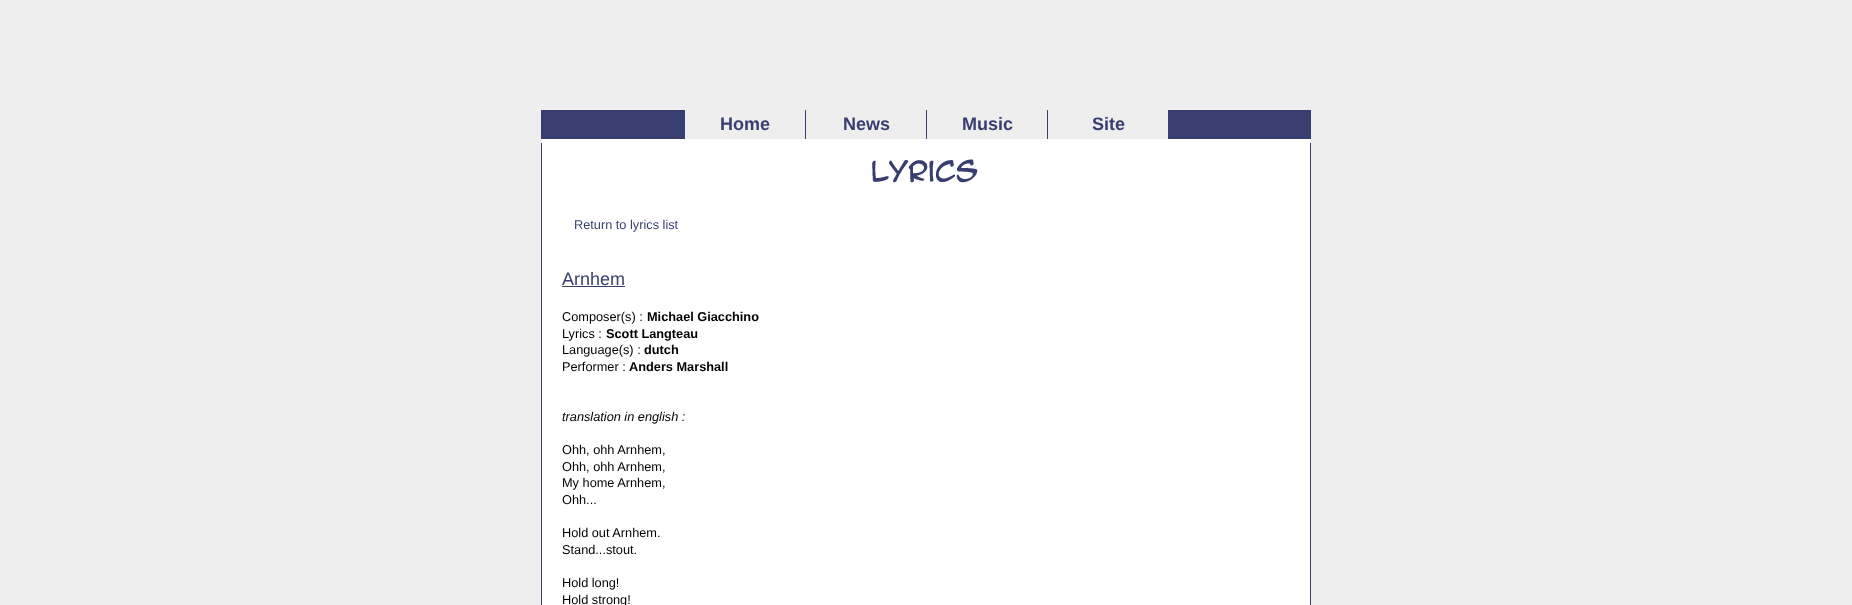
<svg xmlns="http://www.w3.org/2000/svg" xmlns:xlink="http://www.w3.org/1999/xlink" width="1852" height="605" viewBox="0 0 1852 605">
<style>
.cls-1{font:bold 18px Liberation Sans;fill:#383e70}
.cls-2{font:12.75px Liberation Sans;fill:#383e70}
.cls-3{font:18px Liberation Sans;fill:#383e70}
.cls-4{font:12.75px Liberation Sans;fill:#000000}
.cls-5{font:bold 12.75px Liberation Sans;fill:#000000}
.cls-6{font:italic 12.75px Liberation Sans;fill:#000000}
</style>
<rect width="100%" height="100%" fill="#eeeeee"/>
<rect fill="#383e70" x="541" y="110" width="770" height="29"/>
<rect fill="#eeeeee" x="685" y="110" width="120" height="29"/>
<rect fill="#eeeeee" x="806" y="110" width="120" height="29"/>
<rect fill="#eeeeee" x="927" y="110" width="120" height="29"/>
<rect fill="#eeeeee" x="1048" y="110" width="120" height="29"/>
<rect fill="#ffffff" x="541" y="139" width="770" height="4"/>
<rect fill="#ffffff" x="542" y="143" width="768" height="462"/>
<rect fill="#383e70" x="1310" y="143" width="1" height="462"/>
<rect fill="#383e70" x="541" y="143" width="1" height="462"/>
<image xlink:href="image0.png" x="872" y="159" width="106" height="24"/>
<rect fill="#383e70" x="562" y="286" width="63" height="1"/>
<text class="cls-1" x="720" y="130">Home</text>
<text class="cls-1" x="843" y="130">News</text>
<text class="cls-1" x="962" y="130">Music</text>
<text class="cls-1" x="1092" y="130">Site</text>
<text class="cls-2" x="574" y="229">Return to lyrics list</text>
<text class="cls-3" x="562" y="285">Arnhem</text>
<text class="cls-4" x="562" y="321">Composer(s) :</text>
<text class="cls-5" x="647" y="321">Michael Giacchino</text>
<text class="cls-4" x="562" y="338">Lyrics :</text>
<text class="cls-5" x="606" y="338">Scott Langteau</text>
<text class="cls-4" x="562" y="354">Language(s) :</text>
<text class="cls-5" x="644" y="354">dutch</text>
<text class="cls-4" x="562" y="371">Performer :</text>
<text class="cls-5" x="629" y="371">Anders Marshall</text>
<text class="cls-6" x="562" y="421">translation in english :</text>
<text class="cls-4"><tspan x="562" y="454">Ohh, ohh Arnhem,</tspan><tspan x="562" y="471">Ohh, ohh Arnhem,</tspan><tspan x="562" y="487">My home Arnhem,</tspan><tspan x="562" y="504">Ohh...</tspan></text>
<text class="cls-4"><tspan x="562" y="537">Hold out Arnhem.</tspan><tspan x="562" y="554">Stand...stout.</tspan></text>
<text class="cls-4"><tspan x="562" y="587">Hold long!</tspan><tspan x="562" y="604">Hold strong!</tspan></text>
</svg>
